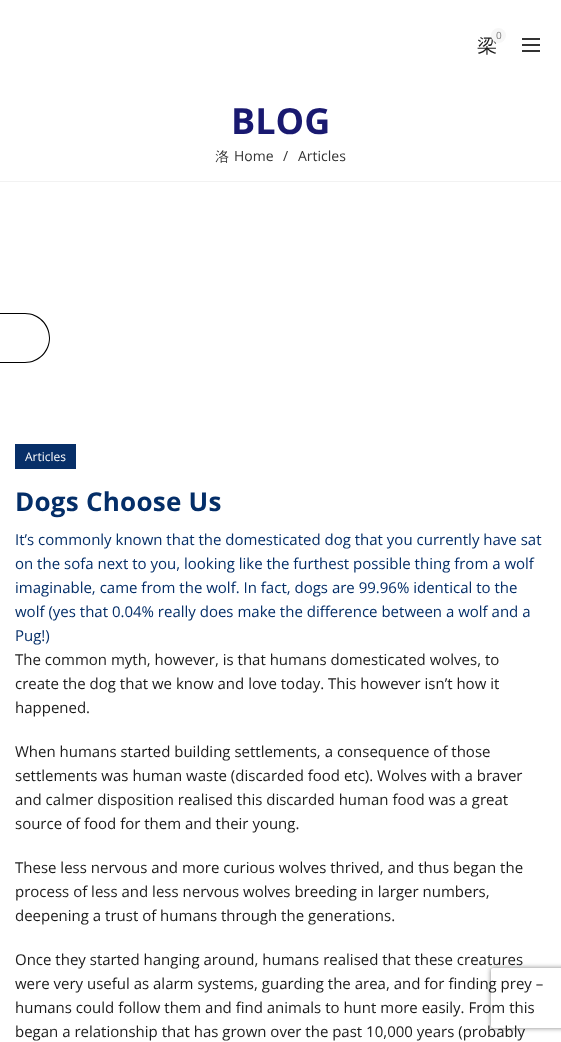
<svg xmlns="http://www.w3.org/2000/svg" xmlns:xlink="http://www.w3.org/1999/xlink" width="561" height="1042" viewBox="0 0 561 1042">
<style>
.cls-1{font:500 20px WenQuanYi Zen Hei;fill:#1a1a1a}
.cls-2{font:10px Open Sans;fill:#7e7e7e}
.cls-3{font:bold 36px Open Sans;fill:#191970}
.cls-4{font:500 14px WenQuanYi Zen Hei;fill:#333333}
.cls-5{font:14px Open Sans;fill:#333333}
.cls-6{font:12px Open Sans;fill:#ffffff}
.cls-7{font:bold 26px Open Sans;letter-spacing:0.25px;fill:#042e68}
.cls-8{font:15px Open Sans;fill:#042e68}
.cls-9{font:15px Open Sans;fill:#1a1a1a}
</style>
<defs>
<clipPath id="clip1"><path d="M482 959H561V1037H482ZM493 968H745C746 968 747 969 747 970V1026C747 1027 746 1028 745 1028H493C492 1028 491 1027 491 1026V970C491 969 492 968 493 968Z" clip-rule="evenodd"/></clipPath>
</defs>
<rect width="100%" height="100%" fill="#ffffff"/>
<rect fill="#333333" x="522" y="44" width="18" height="2"/>
<rect fill="#333333" x="522" y="38" width="18" height="2"/>
<rect fill="#333333" x="522" y="50" width="18" height="2"/>
<rect fill="#f2f2f2" x="0" y="181" width="561" height="1"/>
<rect fill="#072f68" x="15" y="444" width="61" height="25"/>
<path fill="#000000" fill-rule="evenodd" d="M0 313H25C39 313 50 324 50 338C50 352 39 363 25 363H0ZM0 314H25C38 314 49 325 49 338C49 351 38 362 25 362H0Z"/>
<g clip-path="url(#clip1)">
<rect fill="#808080" filter="blur(2.5px)" x="491" y="968" width="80" height="60" rx="2"/>
</g>
<text class="cls-1" x="477" y="52">梁</text>
<circle fill="#f7f7f7" cx="498.5" cy="35.5" r="7.5"/>
<text class="cls-2" x="496" y="39">0</text>
<text class="cls-3" x="231" y="134">BLOG</text>
<text class="cls-4" x="215" y="161">洛</text>
<text class="cls-5" x="234" y="161">Home</text>
<text class="cls-5" x="283" y="161">/</text>
<text class="cls-5" x="298" y="161">Articles</text>
<text class="cls-6" x="25" y="461">Articles</text>
<text class="cls-7" x="15" y="511">Dogs Choose Us</text>
<text class="cls-8"><tspan x="15" y="545">It’s commonly known that the domesticated dog that you currently have sat</tspan><tspan x="15" y="569">on the sofa next to you, looking like the furthest possible thing from a wolf</tspan><tspan x="15" y="593">imaginable, came from the wolf. In fact, dogs are 99.96% identical to the</tspan><tspan x="15" y="617">wolf (yes that 0.04% really does make the difference between a wolf and a</tspan><tspan x="15" y="641">Pug!)</tspan></text>
<text class="cls-9"><tspan x="15" y="665">The common myth, however, is that humans domesticated wolves, to</tspan><tspan x="15" y="689">create the dog that we know and love today. This however isn’t how it</tspan><tspan x="15" y="713">happened.</tspan></text>
<text class="cls-9"><tspan x="15" y="757">When humans started building settlements, a consequence of those</tspan><tspan x="15" y="781">settlements was human waste (discarded food etc). Wolves with a braver</tspan><tspan x="15" y="805">and calmer disposition realised this discarded human food was a great</tspan><tspan x="15" y="829">source of food for them and their young.</tspan></text>
<text class="cls-9"><tspan x="15" y="873">These less nervous and more curious wolves thrived, and thus began the</tspan><tspan x="15" y="897">process of less and less nervous wolves breeding in larger numbers,</tspan><tspan x="15" y="921">deepening a trust of humans through the generations.</tspan></text>
<text class="cls-9"><tspan x="15" y="965">Once they started hanging around, humans realised that these creatures</tspan><tspan x="15" y="989">were very useful as alarm systems, guarding the area, and for finding prey –</tspan><tspan x="15" y="1013">humans could follow them and find animals to hunt more easily. From this</tspan><tspan x="15" y="1037">began a relationship that has grown over the past 10,000 years (probably</tspan></text>
</svg>
